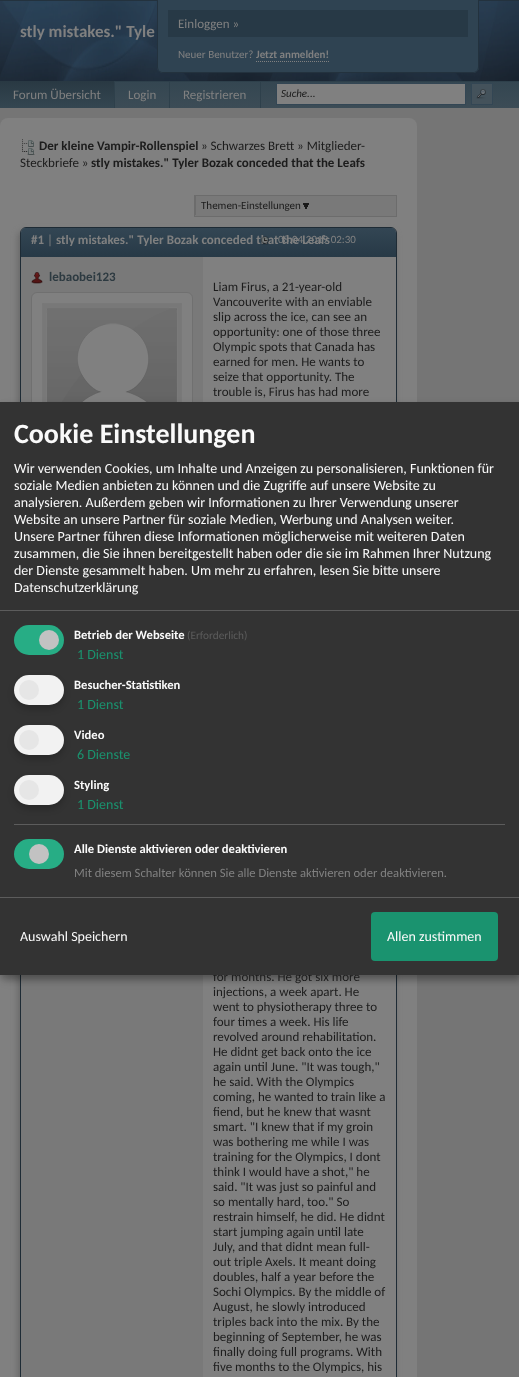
<svg xmlns="http://www.w3.org/2000/svg" xmlns:xlink="http://www.w3.org/1999/xlink" width="519" height="1377" viewBox="0 0 519 1377">
<style>
.cls-1{font:13px Carlito;fill:#808080}
.cls-2{font:11px Carlito;fill:#808080}
.cls-3{font:bold 11px Carlito;fill:#808080}
.cls-4{font:bold 17px Carlito;fill:#808080}
.cls-5{font:italic 11px Carlito;fill:#1c1c1c}
.cls-6{font:bold 13px Carlito;fill:#1c1c1c}
.cls-7{font:13px Carlito;fill:#1c1c1c}
.cls-8{font:11px Carlito;fill:#1c1c1c}
.cls-9{font:bold 13px Carlito;fill:#808080}
.cls-10{font:bold 13px Carlito;fill:#2d3a41}
.cls-11{font:bold 28px Carlito;fill:#fafafa}
.cls-12{font:14px Carlito;fill:#fafafa}
.cls-13{font:bold 12.6px Carlito;fill:#fafafa}
.cls-14{font:11.25px Carlito;fill:#5c5c5c}
.cls-15{font:14px Carlito;fill:#1a936f}
.cls-16{font:12.6px Carlito;fill:#808080}
</style>
<defs>
<linearGradient id="g1" gradientUnits="userSpaceOnUse" x1="0" y1="81" x2="0" y2="108"><stop offset="0" stop-color="#344651"/><stop offset="1" stop-color="#3c4c56"/></linearGradient>
<linearGradient id="g2" gradientUnits="userSpaceOnUse" x1="0" y1="81" x2="0" y2="108"><stop offset="0" stop-color="#293943"/><stop offset="1" stop-color="#344651"/></linearGradient>
<clipPath id="clip1"><path d="M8 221H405V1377H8ZM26 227H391C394.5 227 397 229.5 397 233V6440H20V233C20 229.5 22.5 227 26 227Z" clip-rule="evenodd"/></clipPath>
<linearGradient id="g3" gradientUnits="userSpaceOnUse" x1="21" y1="228" x2="21" y2="257"><stop offset="0" stop-color="#334654"/><stop offset="1" stop-color="#273946"/></linearGradient>
</defs>
<rect width="100%" height="100%" fill="#757575"/>
<rect fill="#23323e" x="0" y="0" width="519" height="1"/>
<image xlink:href="image0.png" x="0" y="1" width="519" height="80"/>
<path fill="#2f4352" d="M157 0H479V67C479 70.5 476.5 73 473 73H163C159.5 73 157 70.5 157 67Z"/>
<path fill="#23323e" fill-rule="evenodd" d="M157 0H479V67C479 70 476 73 473 73H163C160 73 157 70 157 67ZM158 0H478V67C478 70 476 72 473 72H163C160 72 158 70 158 67Z"/>
<rect fill="#273946" x="168" y="10" width="300" height="27"/>
<path fill="none" stroke="#808080" stroke-dasharray="1 1" d="M256 61.5H329"/>
<rect fill="url(#g1)" x="115" y="82" width="404" height="26"/>
<rect fill="#2e404b" x="115" y="81" width="404" height="1"/>
<rect fill="url(#g2)" x="0" y="81" width="114" height="27"/>
<rect fill="#2e404b" x="114" y="81" width="1" height="27"/>
<rect fill="#2e404b" x="260" y="81" width="1" height="27"/>
<rect fill="#2e404b" x="169" y="81" width="1" height="27"/>
<rect fill="#808080" stroke="#334654" x="276.5" y="83.5" width="189" height="21"/>
<rect fill="#44525b" x="472" y="84" width="20" height="20"/>
<image xlink:href="image1.png" x="476" y="89" width="10" height="10"/>
<rect fill="none" stroke="#334654" x="471.5" y="83.5" width="21" height="21"/>
<rect fill="#808080" x="0" y="118" width="417" height="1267" rx="8"/>
<image xlink:href="image2.png" x="22" y="139" width="13" height="16"/>
<rect fill="#797979" stroke="#6c6c6c" x="194.5" y="195.5" width="202" height="21"/>
<rect fill="#6c6c6c" x="195" y="196" width="1" height="19"/>
<image xlink:href="image3.png" x="303" y="203" width="6" height="6"/>
<g clip-path="url(#clip1)">
<rect fill="#666666" filter="blur(3px)" x="18" y="231" width="377" height="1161" rx="6"/>
</g>
<path fill="none" stroke="#1e2b35" d="M26 227.5H391C394 227.5 396.5 230 396.5 233V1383.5H20.5V233C20.5 230 23 227.5 26 227.5Z"/>
<path fill="url(#g3)" d="M26 228H391C394 228 396 230 396 233V257H21V233C21 230 23 228 26 228Z"/>
<rect fill="#797979" x="21" y="257" width="182" height="1120"/>
<image xlink:href="image5.png" x="31" y="272" width="12" height="12"/>
<path fill="#808080" stroke="#707070" d="M37 292.5H187C190 292.5 192.5 295 192.5 298V453.5H31.5V298C31.5 295 34 292.5 37 292.5Z"/>
<image xlink:href="image6.png" x="42" y="303" width="140" height="99"/>
<rect fill="#000000" fill-opacity="0.19" filter="blur(5px)" x="5" y="407" width="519" height="573"/>
<rect fill="#000000" fill-opacity="0.2" filter="blur(3px)" x="0" y="406" width="519" height="573"/>
<text class="cls-1" x="178" y="28">Einloggen »</text>
<text class="cls-2" x="178" y="58">Neuer Benutzer?</text>
<text class="cls-3" x="256" y="58">Jetzt anmelden!</text>
<text class="cls-4" x="20" y="37">stly mistakes." Tyle</text>
<text class="cls-1" x="13" y="99">Forum Übersicht</text>
<text class="cls-1" x="128" y="99">Login</text>
<text class="cls-1" x="183" y="99">Registrieren</text>
<text class="cls-5" x="281" y="97">Suche...</text>
<text class="cls-6" x="39" y="150">Der kleine Vampir-Rollenspiel</text>
<text class="cls-7" x="201" y="150">» Schwarzes Brett » Mitglieder-</text>
<text class="cls-7" x="20" y="167">Steckbriefe »</text>
<text class="cls-6" x="91" y="167">stly mistakes." Tyler Bozak conceded that the Leafs</text>
<text class="cls-8" x="201" y="209">Themen-Einstellungen</text>
<text class="cls-9" x="31" y="244">#1</text>
<text class="cls-1" x="47" y="244">|</text>
<text class="cls-9" x="56" y="244">stly mistakes." Tyler Bozak conceded that the Leafs</text>
<image xlink:href="image4.png" x="261" y="236" width="8" height="9"/>
<text class="cls-2" x="278" y="243">08.04.2019 02:30</text>
<text class="cls-10" x="49" y="281">lebaobei123</text>
<text class="cls-7"><tspan x="213" y="291">Liam Firus, a 21-year-old</tspan><tspan x="213" y="306">Vancouverite with an enviable</tspan><tspan x="213" y="321">slip across the ice, can see an</tspan><tspan x="213" y="336">opportunity: one of those three</tspan><tspan x="213" y="351">Olympic spots that Canada has</tspan><tspan x="213" y="366">earned for men. He wants to</tspan><tspan x="213" y="381">seize that opportunity. The</tspan><tspan x="213" y="396">trouble is, Firus has had more</tspan></text>
<text class="cls-7"><tspan x="213" y="981">for months. He got six more</tspan><tspan x="213" y="996">injections, a week apart. He</tspan><tspan x="213" y="1011">went to physiotherapy three to</tspan><tspan x="213" y="1026">four times a week. His life</tspan><tspan x="213" y="1041">revolved around rehabilitation.</tspan><tspan x="213" y="1056">He didnt get back onto the ice</tspan><tspan x="213" y="1071">again until June. "It was tough,"</tspan><tspan x="213" y="1086">he said. With the Olympics</tspan><tspan x="213" y="1101">coming, he wanted to train like a</tspan><tspan x="213" y="1116">fiend, but he knew that wasnt</tspan><tspan x="213" y="1131">smart. "I knew that if my groin</tspan><tspan x="213" y="1146">was bothering me while I was</tspan><tspan x="213" y="1161">training for the Olympics, I dont</tspan><tspan x="213" y="1176">think I would have a shot," he</tspan><tspan x="213" y="1191">said. "It was just so painful and</tspan><tspan x="213" y="1206">so mentally hard, too." So</tspan><tspan x="213" y="1221">restrain himself, he did. He didnt</tspan><tspan x="213" y="1236">start jumping again until late</tspan><tspan x="213" y="1251">July, and that didnt mean full-</tspan><tspan x="213" y="1266">out triple Axels. It meant doing</tspan><tspan x="213" y="1281">doubles, half a year before the</tspan><tspan x="213" y="1296">Sochi Olympics. By the middle of</tspan><tspan x="213" y="1311">August, he slowly introduced</tspan><tspan x="213" y="1326">triples back into the mix. By the</tspan><tspan x="213" y="1341">beginning of September, he was</tspan><tspan x="213" y="1356">finally doing full programs. With</tspan><tspan x="213" y="1371">five months to the Olympics, his</tspan></text>
<rect fill="#333333" x="0" y="402" width="519" height="573"/>
<rect fill="#5c5c5c" x="0" y="610" width="519" height="1"/>
<text class="cls-11" x="14" y="443">Cookie Einstellungen</text>
<text class="cls-12"><tspan x="14" y="473">Wir verwenden Cookies, um Inhalte und Anzeigen zu personalisieren, Funktionen für</tspan><tspan x="14" y="490">soziale Medien anbieten zu können und die Zugriffe auf unsere Website zu</tspan><tspan x="14" y="507">analysieren. Außerdem geben wir Informationen zu Ihrer Verwendung unserer</tspan><tspan x="14" y="524">Website an unsere Partner für soziale Medien, Werbung und Analysen weiter.</tspan><tspan x="14" y="541">Unsere Partner führen diese Informationen möglicherweise mit weiteren Daten</tspan><tspan x="14" y="558">zusammen, die Sie ihnen bereitgestellt haben oder die sie im Rahmen Ihrer Nutzung</tspan><tspan x="14" y="575">der Dienste gesammelt haben. Um mehr zu erfahren, lesen Sie bitte unsere</tspan><tspan x="14" y="592">Datenschutzerklärung</tspan></text>
<rect fill="#27ad85" x="14" y="625" width="50" height="30" rx="15"/>
<circle fill="#c2c2c2" cx="49" cy="640" r="10"/>
<text class="cls-13" x="74" y="639">Betrieb der Webseite</text>
<text class="cls-14" x="187" y="639">(Erforderlich)</text>
<text class="cls-15" x="77" y="659">1 Dienst</text>
<rect fill="#000000" fill-opacity="0.2" filter="blur(3px)" x="14" y="679" width="50" height="30" rx="15"/>
<rect fill="#f2f2f2" x="14" y="675" width="50" height="30" rx="15"/>
<circle fill="#e6e6e6" cx="29" cy="690" r="10"/>
<text class="cls-13" x="74" y="689">Besucher-Statistiken</text>
<text class="cls-15" x="77" y="709">1 Dienst</text>
<rect fill="#000000" fill-opacity="0.2" filter="blur(3px)" x="14" y="729" width="50" height="30" rx="15"/>
<rect fill="#f2f2f2" x="14" y="725" width="50" height="30" rx="15"/>
<circle fill="#e6e6e6" cx="29" cy="740" r="10"/>
<text class="cls-13" x="74" y="739">Video</text>
<text class="cls-15" x="77" y="759">6 Dienste</text>
<rect fill="#000000" fill-opacity="0.2" filter="blur(3px)" x="14" y="779" width="50" height="30" rx="15"/>
<rect fill="#f2f2f2" x="14" y="775" width="50" height="30" rx="15"/>
<circle fill="#e6e6e6" cx="29" cy="790" r="10"/>
<text class="cls-13" x="74" y="789">Styling</text>
<text class="cls-15" x="77" y="809">1 Dienst</text>
<rect fill="#5c5c5c" x="14" y="824" width="491" height="1"/>
<rect fill="#27ad85" x="14" y="839" width="50" height="30" rx="15"/>
<circle fill="#c2c2c2" cx="39" cy="854" r="10"/>
<text class="cls-13" x="74" y="853">Alle Dienste aktivieren oder deaktivieren</text>
<text class="cls-16" x="74" y="877">Mit diesem Schalter können Sie alle Dienste aktivieren oder deaktivieren.</text>
<rect fill="#5c5c5c" x="0" y="897" width="519" height="1"/>
<text class="cls-12" x="20" y="941">Auswahl Speichern</text>
<rect fill="#1a936f" x="371" y="912" width="127" height="49" rx="4"/>
<text class="cls-12" x="387" y="941">Allen zustimmen</text>
</svg>
